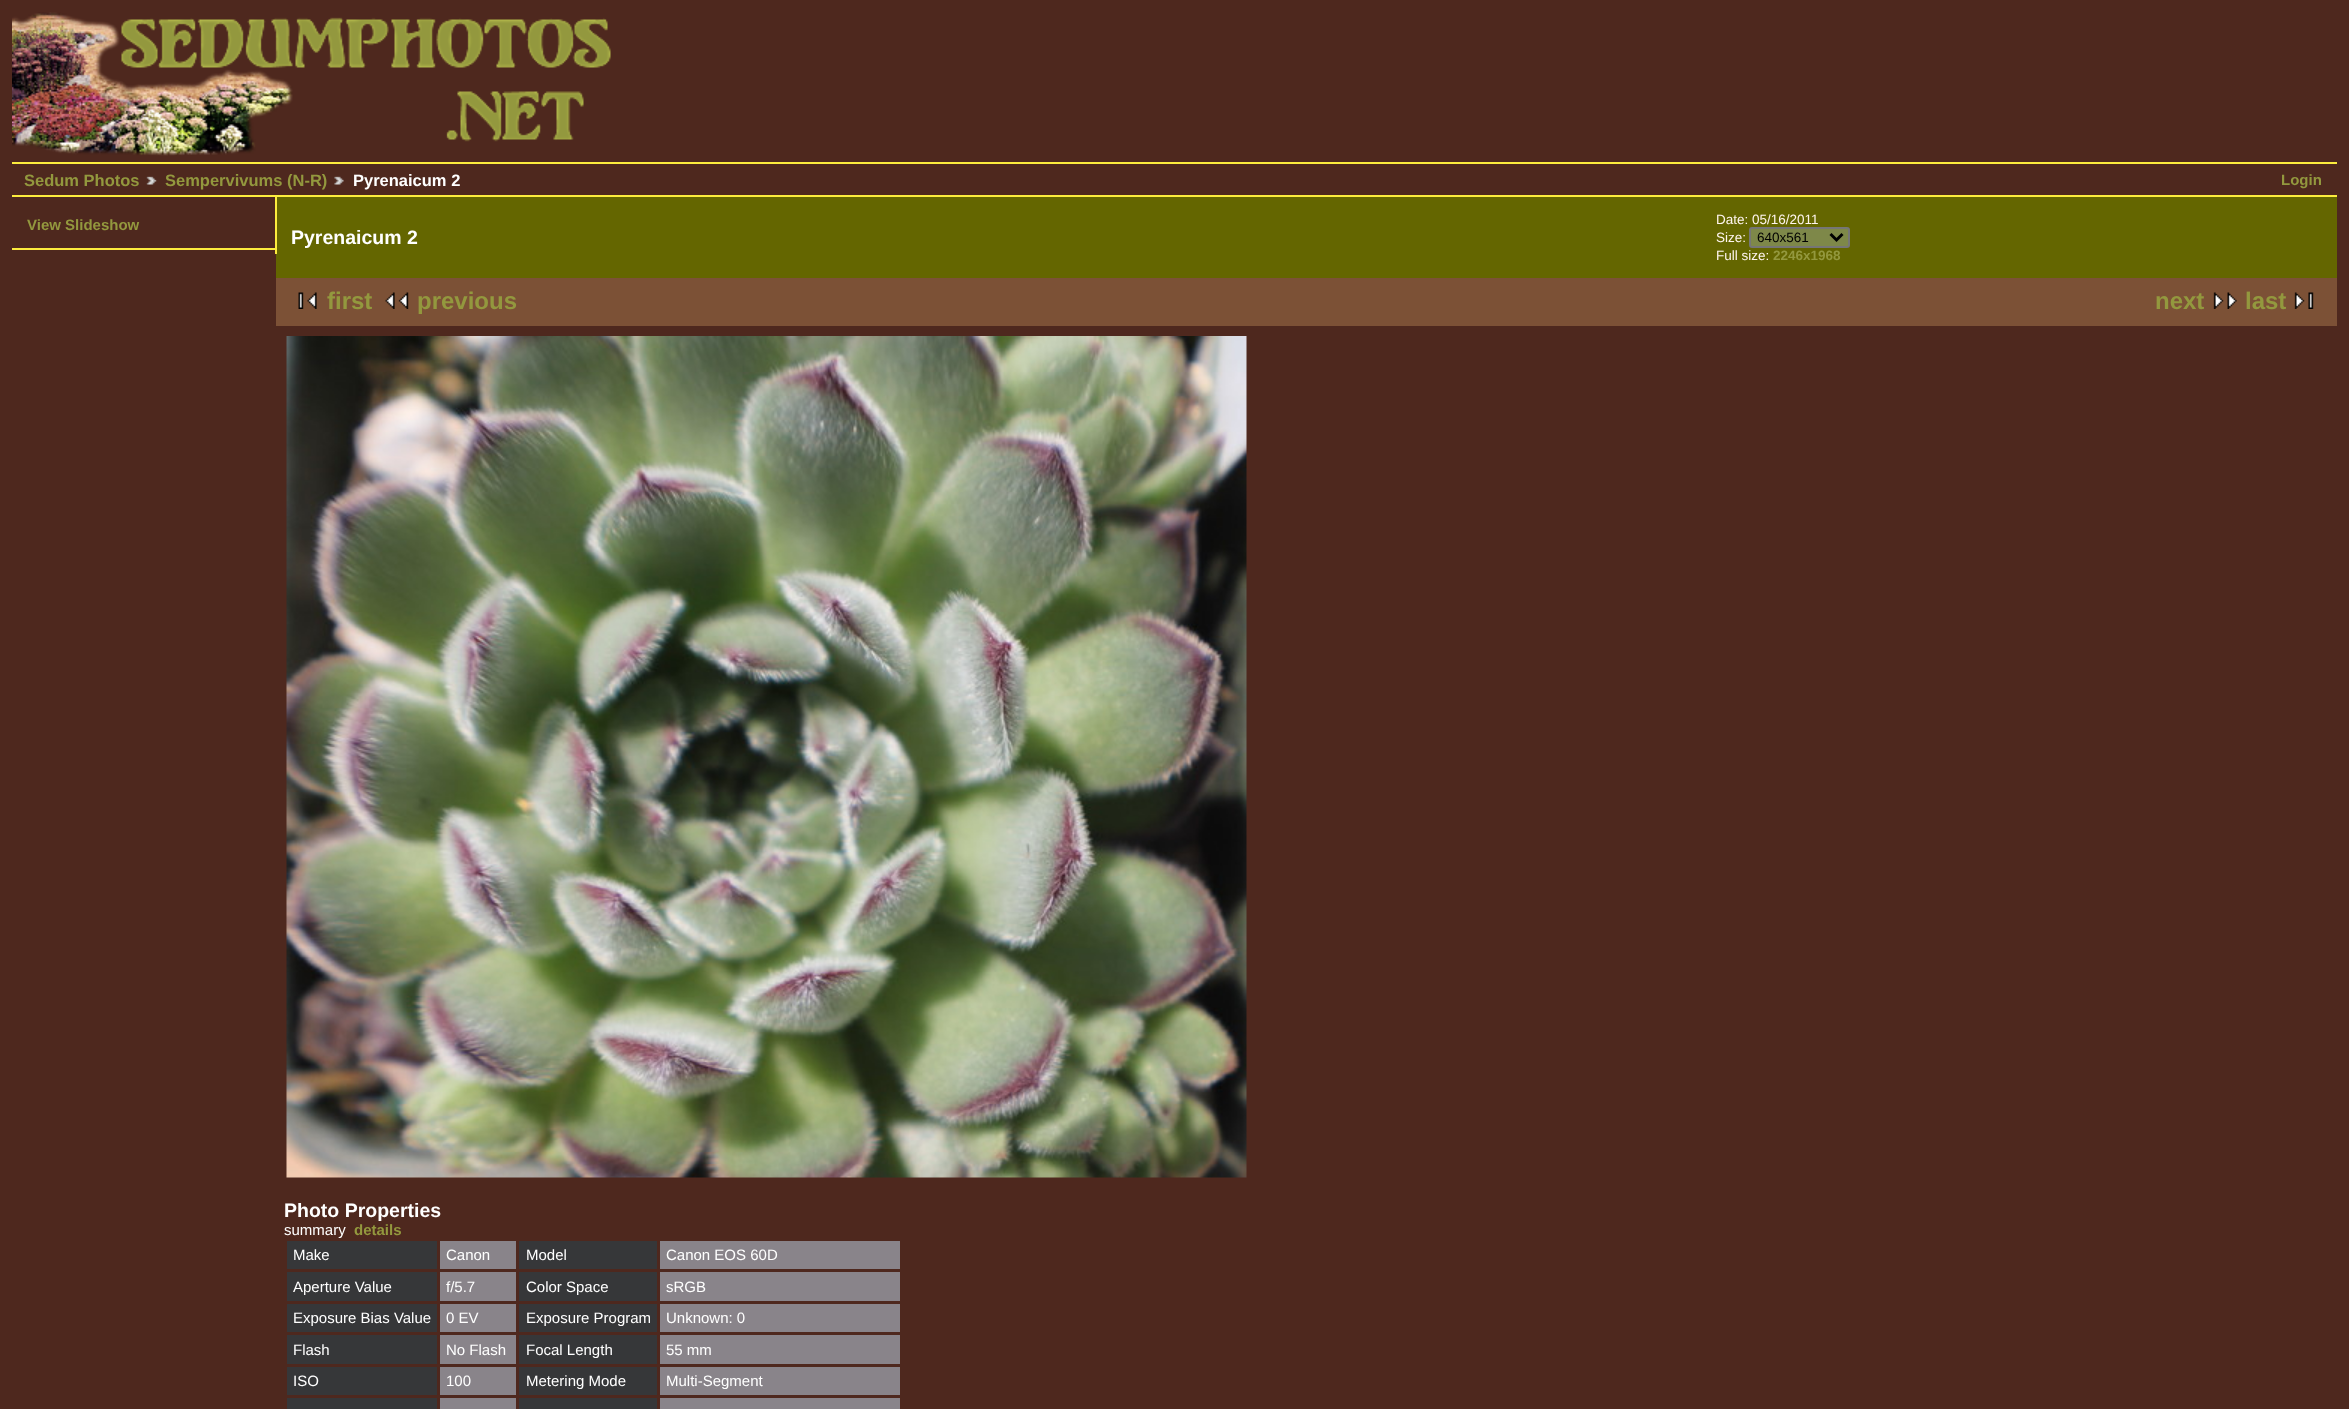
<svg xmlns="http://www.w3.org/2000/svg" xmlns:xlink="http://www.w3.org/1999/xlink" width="2349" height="1409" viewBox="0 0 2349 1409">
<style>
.cls-1{font:bold 16.5px Liberation Sans;fill:#93983e}
.cls-2{font:bold 16.5px Liberation Sans;fill:#ffffff}
.cls-3{font:bold 15px Liberation Sans;fill:#93983e}
.cls-4{font:bold 19.5px Liberation Sans;fill:#ffffff}
.cls-5{font:13.5px Liberation Sans;fill:#fff5ee}
.cls-6{font:13.5px Liberation Sans;fill:#000000}
.cls-7{font:bold 13.5px Liberation Sans;fill:#93983e}
.cls-8{font:bold 24px Liberation Sans;fill:#93983e}
.cls-9{font:15px Liberation Sans;fill:#ffffff}
</style>
<rect width="100%" height="100%" fill="#4e281e"/>
<image xlink:href="image0.png" x="12" y="12" width="599" height="144"/>
<rect fill="#fcec3e" x="12" y="162" width="2325" height="2"/>
<rect fill="#fcec3e" x="12" y="195" width="2325" height="2"/>
<image xlink:href="image1.png" x="146" y="176" width="11" height="9"/>
<image xlink:href="image2.png" x="334" y="176" width="10" height="9"/>
<rect fill="#646600" x="276" y="197" width="2061" height="81"/>
<rect fill="#fcec3e" x="275" y="197" width="2" height="57"/>
<rect fill="#fcec3e" x="12" y="248" width="263" height="2"/>
<rect fill="#7e8849" stroke="#767676" stroke-width="2" x="1750" y="228" width="99" height="19" rx="2"/>
<path fill="none" stroke="#000000" stroke-width="3" d="M1830.5 234L1836.5 240L1842.5 234"/>
<rect fill="#7c5136" x="276" y="278" width="2061" height="48"/>
<image xlink:href="image3.png" x="298" y="292" width="19" height="17"/>
<image xlink:href="image4.png" x="385" y="292" width="24" height="17"/>
<image xlink:href="image5.png" x="2213" y="292" width="24" height="17"/>
<image xlink:href="image6.png" x="2294" y="292" width="20" height="17"/>
<image xlink:href="image7.png" x="286" y="336" width="961" height="842"/>
<rect fill="#363739" x="287" y="1241" width="150" height="28"/>
<rect fill="#89848a" x="440" y="1241" width="76" height="28"/>
<rect fill="#363739" x="519" y="1241" width="138" height="28"/>
<rect fill="#89848a" x="660" y="1241" width="240" height="28"/>
<rect fill="#363739" x="287" y="1272" width="150" height="29"/>
<rect fill="#89848a" x="440" y="1272" width="76" height="29"/>
<rect fill="#363739" x="519" y="1272" width="138" height="29"/>
<rect fill="#89848a" x="660" y="1272" width="240" height="29"/>
<rect fill="#363739" x="287" y="1304" width="150" height="28"/>
<rect fill="#89848a" x="440" y="1304" width="76" height="28"/>
<rect fill="#363739" x="519" y="1304" width="138" height="28"/>
<rect fill="#89848a" x="660" y="1304" width="240" height="28"/>
<rect fill="#363739" x="287" y="1335" width="150" height="29"/>
<rect fill="#89848a" x="440" y="1335" width="76" height="29"/>
<rect fill="#363739" x="519" y="1335" width="138" height="29"/>
<rect fill="#89848a" x="660" y="1335" width="240" height="29"/>
<rect fill="#363739" x="287" y="1367" width="150" height="28"/>
<rect fill="#89848a" x="440" y="1367" width="76" height="28"/>
<rect fill="#363739" x="519" y="1367" width="138" height="28"/>
<rect fill="#89848a" x="660" y="1367" width="240" height="28"/>
<rect fill="#363739" x="287" y="1398" width="150" height="11"/>
<rect fill="#89848a" x="440" y="1398" width="76" height="11"/>
<rect fill="#363739" x="519" y="1398" width="138" height="11"/>
<rect fill="#89848a" x="660" y="1398" width="240" height="11"/>
<text class="cls-1" x="24" y="186">Sedum Photos</text>
<text class="cls-1" x="165" y="186">Sempervivums (N-R)</text>
<text class="cls-2" x="353" y="186">Pyrenaicum 2</text>
<text class="cls-3" x="2281" y="185">Login</text>
<text class="cls-3" x="27" y="230">View Slideshow</text>
<text class="cls-4" x="291" y="244">Pyrenaicum 2</text>
<text class="cls-5"><tspan x="1716" y="224">Date: 05/16/2011</tspan><tspan x="1716" y="242">Size:</tspan></text>
<text class="cls-6" x="1757" y="242">640x561</text>
<text class="cls-5" x="1716" y="260">Full size:</text>
<text class="cls-7" x="1773" y="260">2246x1968</text>
<text class="cls-8" x="327" y="309">first</text>
<text class="cls-8" x="417" y="309">previous</text>
<text class="cls-8" x="2155" y="309">next</text>
<text class="cls-8" x="2245" y="309">last</text>
<text class="cls-4" x="284" y="1217">Photo Properties</text>
<text class="cls-9" x="284" y="1235">summary</text>
<text class="cls-3" x="354" y="1235">details</text>
<text class="cls-9" x="293" y="1260">Make</text>
<text class="cls-9" x="446" y="1260">Canon</text>
<text class="cls-9" x="526" y="1260">Model</text>
<text class="cls-9" x="666" y="1260">Canon EOS 60D</text>
<text class="cls-9" x="293" y="1292">Aperture Value</text>
<text class="cls-9" x="446" y="1292">f/5.7</text>
<text class="cls-9" x="526" y="1292">Color Space</text>
<text class="cls-9" x="666" y="1292">sRGB</text>
<text class="cls-9" x="293" y="1323">Exposure Bias Value</text>
<text class="cls-9" x="446" y="1323">0 EV</text>
<text class="cls-9" x="526" y="1323">Exposure Program</text>
<text class="cls-9" x="666" y="1323">Unknown: 0</text>
<text class="cls-9" x="293" y="1355">Flash</text>
<text class="cls-9" x="446" y="1355">No Flash</text>
<text class="cls-9" x="526" y="1355">Focal Length</text>
<text class="cls-9" x="666" y="1355">55 mm</text>
<text class="cls-9" x="293" y="1386">ISO</text>
<text class="cls-9" x="446" y="1386">100</text>
<text class="cls-9" x="526" y="1386">Metering Mode</text>
<text class="cls-9" x="666" y="1386">Multi-Segment</text>
</svg>
